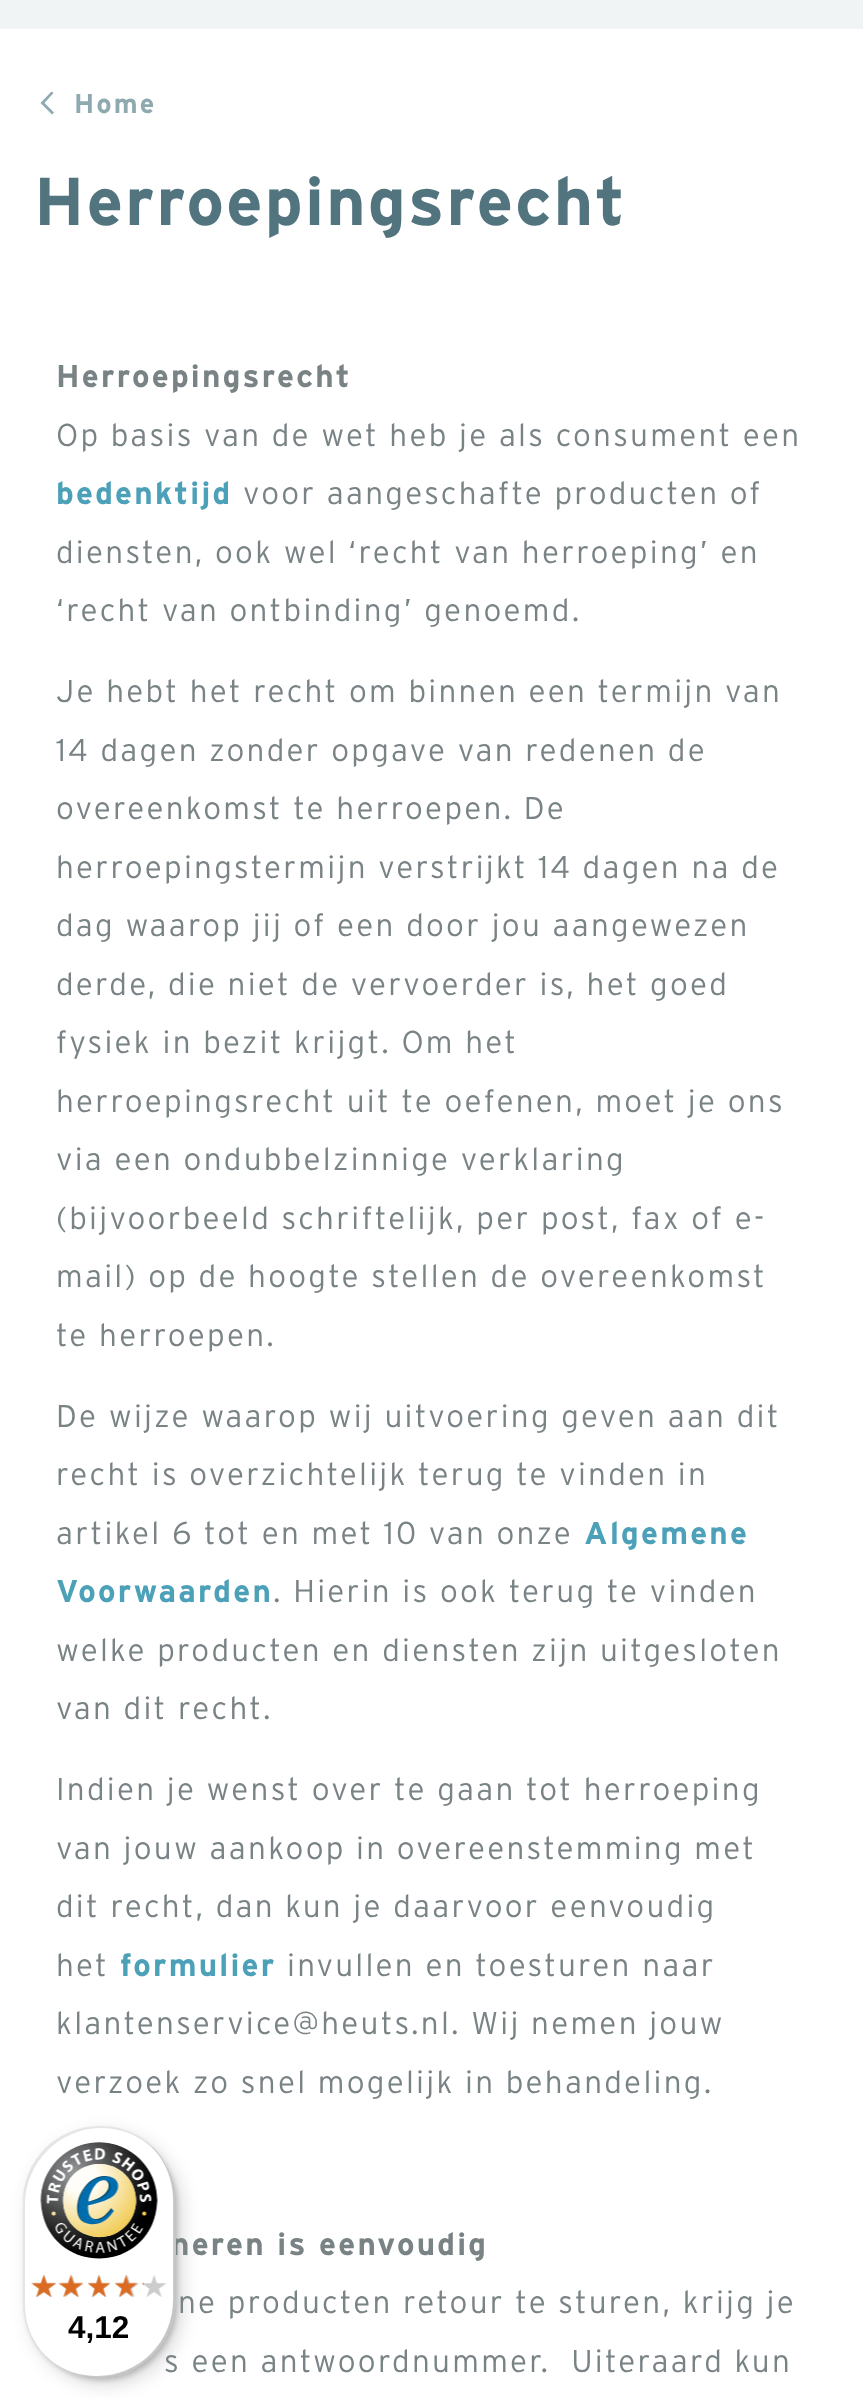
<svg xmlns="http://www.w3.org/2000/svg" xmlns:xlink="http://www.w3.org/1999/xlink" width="863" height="2399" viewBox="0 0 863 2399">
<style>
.cls-1{font:bold 27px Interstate;letter-spacing:2.25px;fill:#8fa9b0}
.cls-2{font:bold 67.5px Interstate;letter-spacing:2.25px;fill:#51747e}
.cls-3{font:bold 31.5px Interstate;letter-spacing:2.25px;fill:#798285}
.cls-4{font:300 31.5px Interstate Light;letter-spacing:2.25px;fill:#798285}
.cls-5{font:bold 31.5px Interstate;letter-spacing:2.25px;fill:#4ca1b9}
.cls-6{font:bold 31.5px Liberation Sans;fill:#000000}
</style>
<rect width="100%" height="100%" fill="#ffffff"/>
<rect fill="#f0f4f5" x="0" y="0" width="863" height="29"/>
<path fill="#8fa9b0" d="M44.5 103L53.5 93L51.5 91.5L40.5 103L52 114.5L54 112.5Z"/>
<rect fill="#000000" fill-opacity="0.15" filter="blur(9px)" x="29" y="2133" width="153" height="252" rx="76.5"/>
<rect fill="#000000" fill-opacity="0.15" filter="blur(2px)" x="25" y="2129" width="153" height="252" rx="76.5"/>
<text class="cls-1" x="74" y="113">Home</text>
<text class="cls-2" x="34" y="225">Herroepingsrecht</text>
<text class="cls-3" x="56" y="387">Herroepingsrecht</text>
<text class="cls-4" x="56" y="446">Op basis van de wet heb je als consument een</text>
<text class="cls-5" x="56" y="504">bedenktijd</text>
<text class="cls-4" x="243" y="504">voor aangeschafte producten of</text>
<text class="cls-4"><tspan x="56" y="563">diensten, ook wel ‘recht van herroeping’ en</tspan><tspan x="56" y="621">‘recht van ontbinding’ genoemd.</tspan></text>
<text class="cls-4"><tspan x="56" y="702">Je hebt het recht om binnen een termijn van</tspan><tspan x="56" y="761">14 dagen zonder opgave van redenen de</tspan><tspan x="56" y="819">overeenkomst te herroepen. De</tspan><tspan x="56" y="878">herroepingstermijn verstrijkt 14 dagen na de</tspan><tspan x="56" y="936">dag waarop jij of een door jou aangewezen</tspan><tspan x="56" y="995">derde, die niet de vervoerder is, het goed</tspan><tspan x="56" y="1053">fysiek in bezit krijgt. Om het</tspan><tspan x="56" y="1112">herroepingsrecht uit te oefenen, moet je ons</tspan><tspan x="56" y="1170">via een ondubbelzinnige verklaring</tspan><tspan x="56" y="1229">(bijvoorbeeld schriftelijk, per post, fax of e-</tspan><tspan x="56" y="1287">mail) op de hoogte stellen de overeenkomst</tspan><tspan x="56" y="1346">te herroepen.</tspan></text>
<text class="cls-4"><tspan x="56" y="1427">De wijze waarop wij uitvoering geven aan dit</tspan><tspan x="56" y="1485">recht is overzichtelijk terug te vinden in</tspan><tspan x="56" y="1544">artikel 6 tot en met 10 van onze</tspan></text>
<text class="cls-5" x="584" y="1544">Algemene</text>
<text class="cls-5" x="56" y="1602">Voorwaarden</text>
<text class="cls-4" x="273" y="1602">. Hierin is ook terug te vinden</text>
<text class="cls-4"><tspan x="56" y="1661">welke producten en diensten zijn uitgesloten</tspan><tspan x="56" y="1719">van dit recht.</tspan></text>
<text class="cls-4"><tspan x="56" y="1800">Indien je wenst over te gaan tot herroeping</tspan><tspan x="56" y="1859">van jouw aankoop in overeenstemming met</tspan><tspan x="56" y="1917">dit recht, dan kun je daarvoor eenvoudig</tspan><tspan x="56" y="1976">het</tspan></text>
<text class="cls-5" x="120" y="1976">formulier</text>
<text class="cls-4" x="287" y="1976">invullen en toesturen naar</text>
<text class="cls-4"><tspan x="56" y="2034">klantenservice@heuts.nl. Wij nemen jouw</tspan><tspan x="56" y="2093">verzoek zo snel mogelijk in behandeling.</tspan></text>
<text class="cls-3" x="171" y="2255">neren is eenvoudig</text>
<text class="cls-4" x="178" y="2313">ne producten retour te sturen, krijg je</text>
<text class="cls-4" xml:space="preserve" x="164" y="2372">s een antwoordnummer.  Uiteraard kun</text>
<rect fill="#ffffff" x="23" y="2126" width="153" height="252" rx="76.5"/>
<path fill="#000000" fill-opacity="0.1" d="M101 2128C126 2128 148 2140 163 2159C149 2139 126 2126 100 2126C57 2126 23 2160 23 2202V2302C23 2321 30 2339 42 2352C31 2339 25 2322 25 2304V2205C25 2163 59 2128 101 2128Z"/>
<path fill="#000000" fill-opacity="0.2" d="M53 2362C66 2372 82 2378 100 2378C142 2378 176 2344 176 2302V2202C176 2177 163 2154 144 2140C162 2154 173 2176 173 2200V2300C173 2342 139 2376 97 2376C81 2376 65 2371 53 2362Z"/>
<path fill="#323232" fill-opacity="0.2" d="M64 2369C75 2375 87 2378 100 2378C142 2378 176 2344 176 2302V2202C176 2175 161 2150 139 2137C160 2150 174 2174 174 2201V2300C174 2343 140 2377 98 2377C86 2377 74 2374 64 2369Z"/>
<path fill="#ffffff" fill-opacity="0.3" d="M59 2366C71 2374 85 2378 100 2378C142 2378 176 2344 176 2302V2202C176 2174 161 2149 138 2136C159 2150 174 2174 174 2202V2301C174 2343 140 2377 98 2377C84 2377 71 2373 59 2366Z"/>
<image xlink:href="image0.png" x="40" y="2142" width="118" height="117"/>
<image xlink:href="image6.png" x="31" y="2275" width="25" height="22"/>
<image xlink:href="image1.png" x="31" y="2274" width="26" height="23"/>
<image xlink:href="image7.png" x="61" y="2275" width="22" height="22"/>
<image xlink:href="image2.png" x="58" y="2274" width="26" height="23"/>
<image xlink:href="image8.png" x="88" y="2275" width="22" height="22"/>
<image xlink:href="image3.png" x="87" y="2274" width="24" height="23"/>
<image xlink:href="image9.png" x="115" y="2275" width="25" height="22"/>
<image xlink:href="image4.png" x="114" y="2274" width="24" height="23"/>
<image xlink:href="image10.png" x="142" y="2275" width="25" height="22"/>
<image xlink:href="image5.png" x="141" y="2282" width="3" height="4"/>
<text class="cls-6" x="68" y="2338">4,12</text>
</svg>
